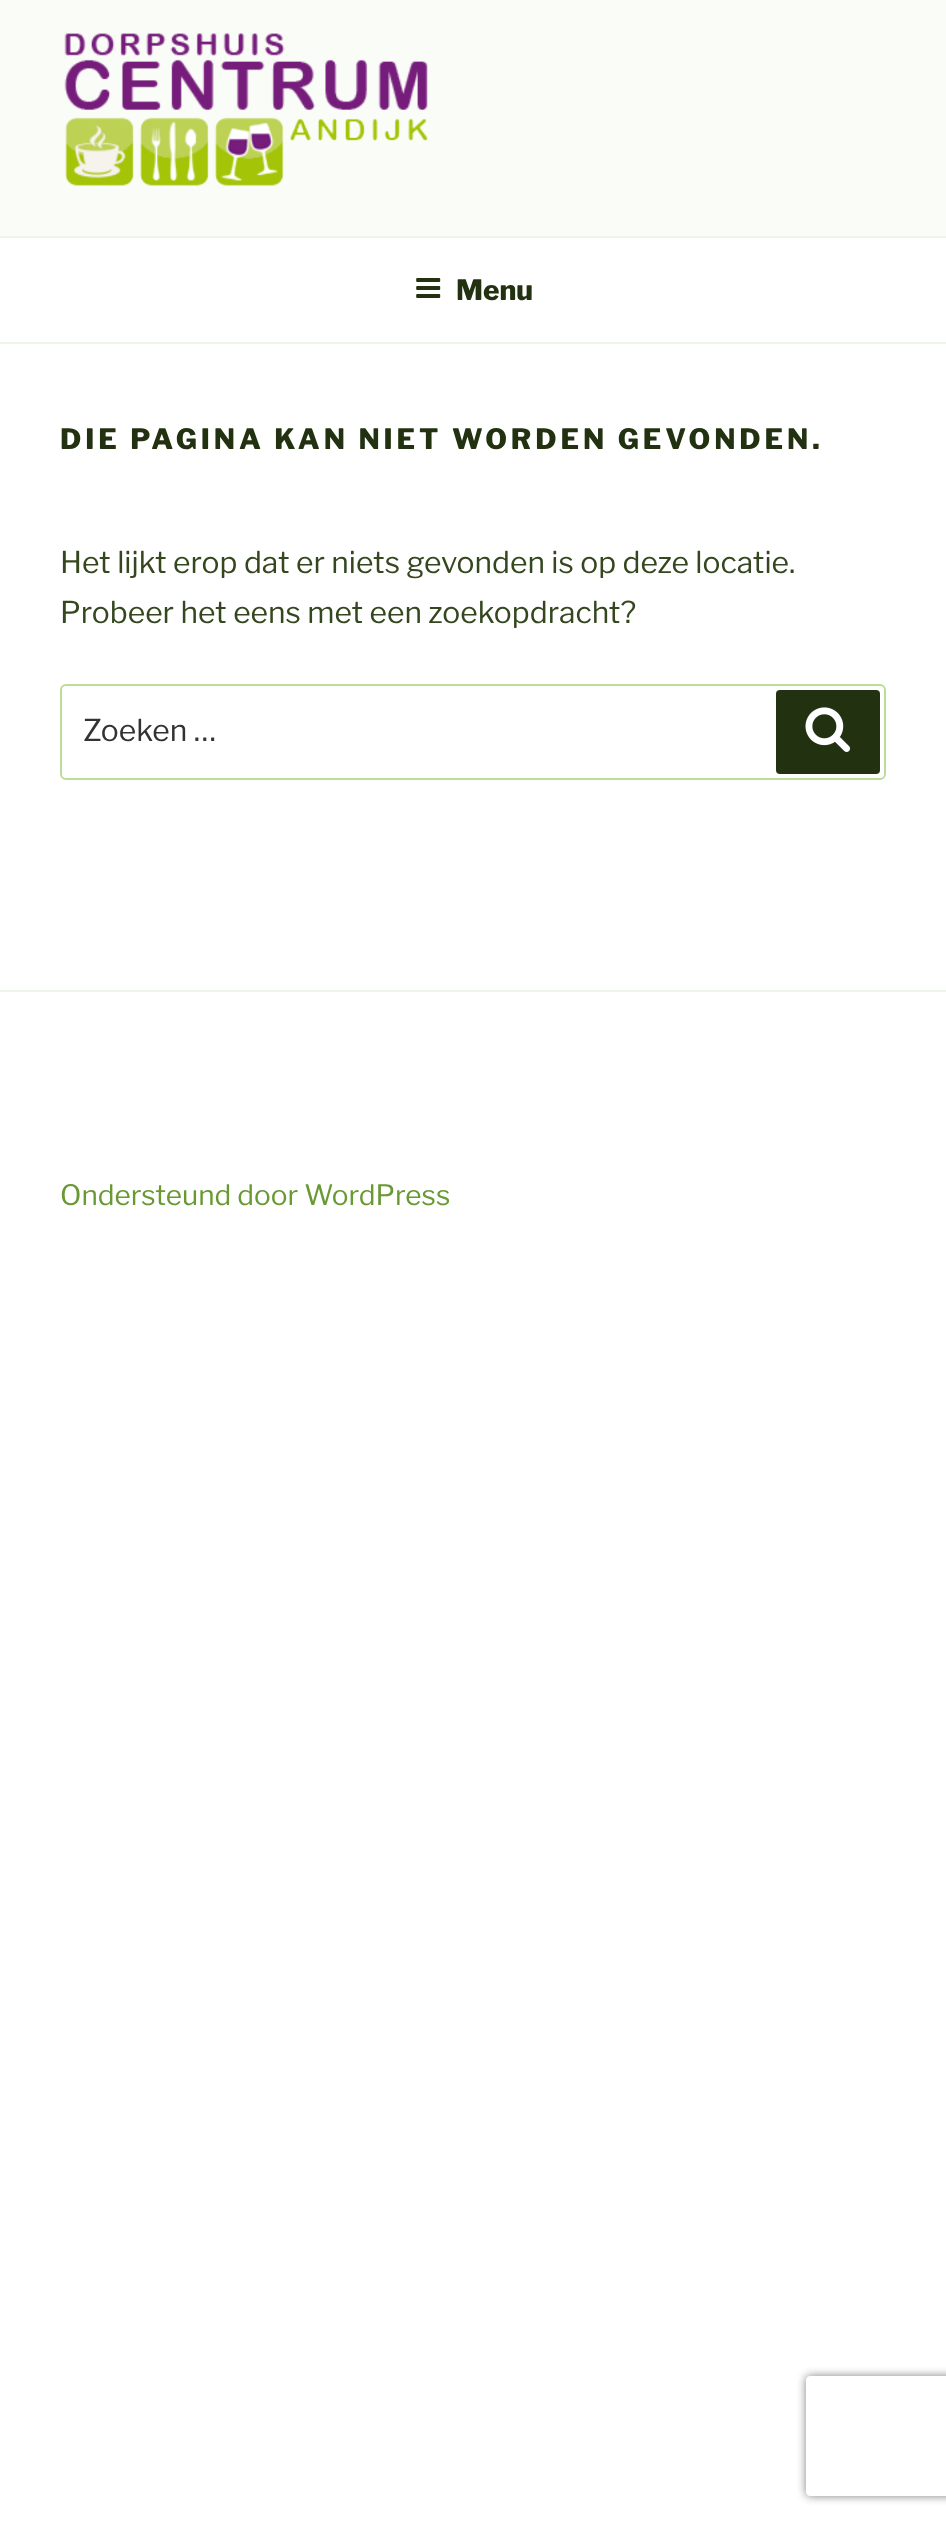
<svg xmlns="http://www.w3.org/2000/svg" xmlns:xlink="http://www.w3.org/1999/xlink" width="946" height="2524" viewBox="0 0 946 2524">
<style>
.cls-1{font:100 28px Libre Franklin;fill:#223211}
.cls-2{font:100 28px Libre Franklin;letter-spacing:3.9px;fill:#223211}
.cls-3{font:100 30px 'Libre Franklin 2';fill:#34471f}
.cls-4{font:100 30px 'Libre Franklin 2';fill:#333333}
.cls-5{font:100 28px 'Libre Franklin 2';fill:#689933}
</style>
<defs>
<clipPath id="clip1"><path d="M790 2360H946V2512H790ZM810 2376H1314C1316 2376 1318 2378 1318 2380V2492C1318 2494 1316 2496 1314 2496H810C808 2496 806 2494 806 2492V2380C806 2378 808 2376 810 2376Z" clip-rule="evenodd"/></clipPath>
</defs>
<rect width="100%" height="100%" fill="#ffffff"/>
<rect fill="#fafcf7" x="0" y="0" width="946" height="236"/>
<image xlink:href="image0.png" x="64" y="33" width="364" height="153"/>
<rect fill="#edf6e4" x="0" y="236" width="946" height="2"/>
<rect fill="#edf6e4" x="0" y="342" width="946" height="2"/>
<image xlink:href="image1.png" x="416" y="278" width="25" height="20"/>
<rect fill="none" stroke="#bbdd98" stroke-width="2" x="61" y="685" width="824" height="94" rx="5"/>
<rect fill="#223211" x="776" y="690" width="104" height="84" rx="4"/>
<image xlink:href="image2.png" x="805" y="707" width="46" height="45"/>
<rect fill="#edf6e4" x="0" y="990" width="946" height="2"/>
<g clip-path="url(#clip1)">
<rect fill="#808080" filter="blur(5px)" x="806" y="2376" width="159" height="120" rx="4"/>
</g>
<text class="cls-1" x="456" y="300">Menu</text>
<text class="cls-2" x="60" y="449">DIE PAGINA KAN NIET WORDEN GEVONDEN.</text>
<text class="cls-3"><tspan x="60" y="573">Het lijkt erop dat er niets gevonden is op deze locatie.</tspan><tspan x="60" y="623">Probeer het eens met een zoekopdracht?</tspan></text>
<text class="cls-4" x="83" y="741">Zoeken …</text>
<text class="cls-5" x="60" y="1205">Ondersteund door WordPress</text>
</svg>
